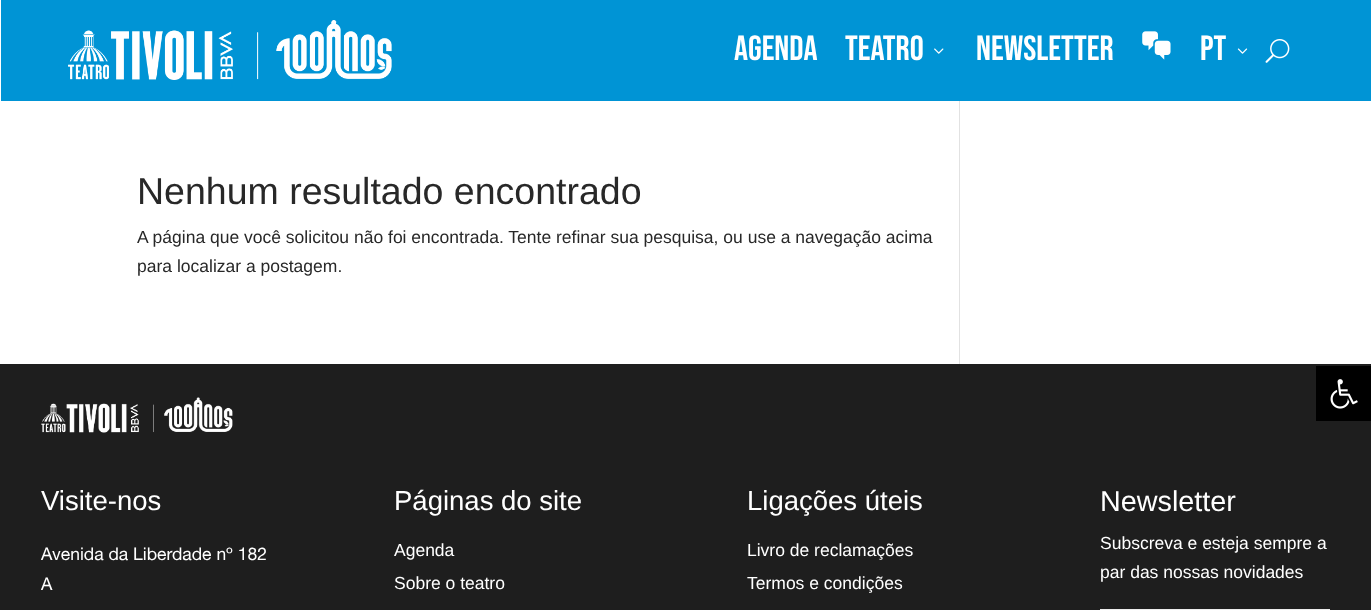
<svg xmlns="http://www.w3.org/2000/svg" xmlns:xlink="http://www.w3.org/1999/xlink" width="1371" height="610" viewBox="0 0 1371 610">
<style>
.cls-1{font:35px Bebas Neue;fill:#ffffff}
.cls-2{font:37.5px Liberation Sans;fill:#282828}
.cls-3{font:17.5px Liberation Sans;fill:#282828}
.cls-4{font:27.5px Liberation Sans;fill:#ffffff}
.cls-5{font:17.5px Helvetica Neue;fill:#ffffff}
.cls-6{font:17.5px Liberation Sans;fill:#ffffff}
.cls-7{font:28.75px Liberation Sans;fill:#ffffff}
</style>
<rect width="100%" height="100%" fill="#ffffff"/>
<rect fill="#e2e2e2" x="959" y="100" width="1" height="264"/>
<rect fill="#0094d5" x="1" y="0" width="1370" height="101"/>
<image xlink:href="image0.png" x="68" y="20" width="324" height="60"/>
<image xlink:href="image1.png" x="934" y="48" width="10" height="6"/>
<image xlink:href="image2.png" x="1142" y="31" width="29" height="29"/>
<image xlink:href="image3.png" x="1237" y="48" width="11" height="6"/>
<image xlink:href="image4.png" x="1265" y="39" width="25" height="24"/>
<rect fill="#1e1e1e" x="0" y="364" width="1371" height="246"/>
<image xlink:href="image5.png" x="41" y="397" width="192" height="36"/>
<rect fill="#eeeeee" x="1100" y="609" width="230" height="1"/>
<rect fill="#000000" x="1316" y="366" width="55" height="55"/>
<image xlink:href="image6.png" x="1330" y="379" width="28" height="30"/>
<text class="cls-1" x="734" y="60">Agenda</text>
<text class="cls-1" x="845" y="60">Teatro</text>
<text class="cls-1" x="976" y="60">Newsletter</text>
<text class="cls-1" x="1200" y="60">PT</text>
<text class="cls-2" x="137" y="204">Nenhum resultado encontrado</text>
<text class="cls-3"><tspan x="137" y="243">A página que você solicitou não foi encontrada. Tente refinar sua pesquisa, ou use a navegação acima</tspan><tspan x="137" y="272">para localizar a postagem.</tspan></text>
<text class="cls-4" x="41" y="510">Visite-nos</text>
<text class="cls-5"><tspan x="41" y="560">Avenida da Liberdade nº 182</tspan><tspan x="41" y="590">A</tspan></text>
<text class="cls-4" x="394" y="510">Páginas do site</text>
<text class="cls-6"><tspan x="394" y="556">Agenda</tspan><tspan x="394" y="589">Sobre o teatro</tspan></text>
<text class="cls-4" x="747" y="510">Ligações úteis</text>
<text class="cls-6"><tspan x="747" y="556">Livro de reclamações</tspan><tspan x="747" y="589">Termos e condições</tspan></text>
<text class="cls-7" x="1100" y="511">Newsletter</text>
<text class="cls-6"><tspan x="1100" y="549">Subscreva e esteja sempre a</tspan><tspan x="1100" y="578">par das nossas novidades</tspan></text>
</svg>
